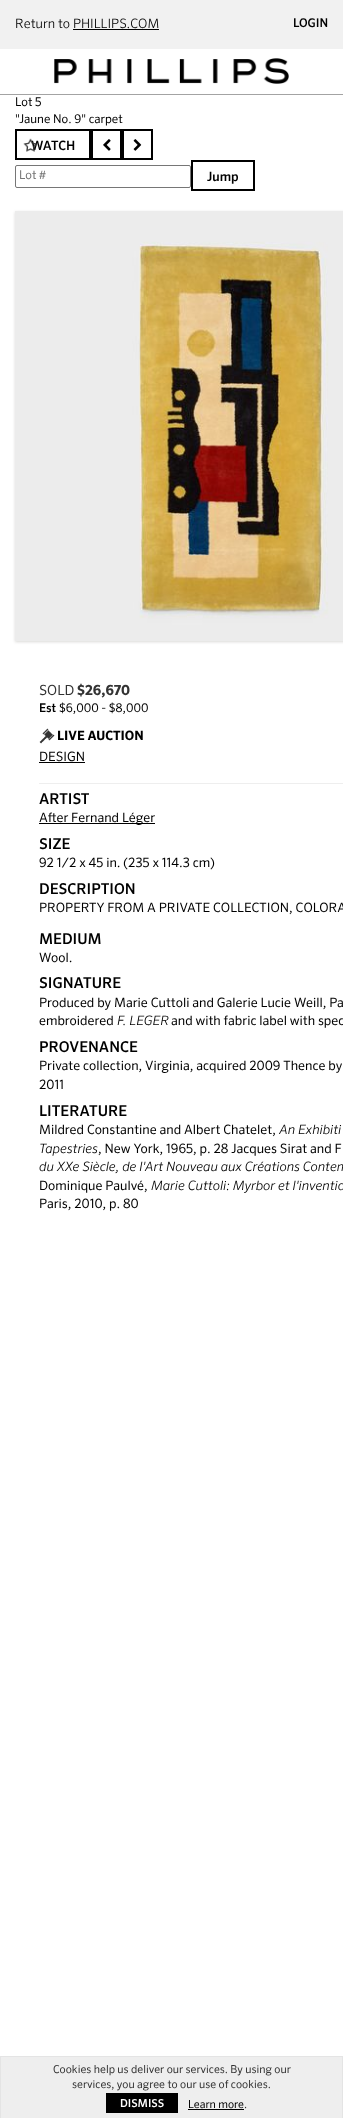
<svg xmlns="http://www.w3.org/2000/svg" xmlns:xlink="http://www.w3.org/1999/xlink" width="343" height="2118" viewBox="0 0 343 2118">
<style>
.cls-1{font:300 13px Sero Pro;fill:#000000}
.cls-2{font:500 12px Sero Pro;fill:#000000}
.cls-3{font:12px Sero Pro;fill:#000000}
.cls-4{font:500 13px Sero Pro;fill:#000000}
.cls-5{font:12px Sero Pro;fill:#757575}
.cls-6{font:14px Sero Pro;fill:#333333}
.cls-7{font:bold 14px Sero Pro;fill:#333333}
.cls-8{font:bold 13px Sero Pro;fill:#000000}
.cls-9{font:13px Sero Pro;fill:#000000}
.cls-10{font:500 15px Sero Pro;fill:#000000}
.cls-11{font:italic 300 13px Sero Pro;fill:#000000}
.cls-12{font:11px Sero Pro;fill:#333333}
.cls-13{font:500 11px Sero Pro;fill:#ffffff}
.cls-14{font:11px Sero Pro;fill:#000000}
</style>
<rect width="100%" height="100%" fill="#ffffff"/>
<rect fill="#a3a3a3" x="0" y="94" width="343" height="1"/>
<rect fill="#f1f1f1" x="0" y="0" width="343" height="49"/>
<rect fill="#000000" x="73" y="29" width="86" height="1"/>
<image xlink:href="image0.png" x="54" y="58" width="235" height="26"/>
<rect fill="none" stroke="#000000" stroke-width="2" x="16" y="130" width="74" height="29"/>
<rect fill="none" stroke="#000000" stroke-width="2" x="92" y="130" width="29" height="29"/>
<image xlink:href="image2.png" x="103" y="139" width="8" height="12"/>
<rect fill="none" stroke="#000000" stroke-width="2" x="123" y="130" width="29" height="29"/>
<image xlink:href="image3.png" x="133" y="139" width="9" height="12"/>
<rect fill="none" stroke="#767676" x="15.5" y="165.5" width="175" height="22" rx="1.5"/>
<rect fill="none" stroke="#000000" stroke-width="2" x="192" y="161" width="62" height="29"/>
<rect fill="#dad9d7" filter="blur(1.5px)" x="15" y="212" width="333" height="430"/>
<image xlink:href="image4.png" x="15" y="211" width="328" height="430"/>
<image xlink:href="image5.png" x="39" y="728" width="16" height="16"/>
<rect fill="#000000" x="39" y="762" width="46" height="1"/>
<rect fill="#eeeeee" x="39" y="783" width="304" height="1"/>
<rect fill="#000000" x="39" y="823" width="116" height="1"/>
<rect fill="#eeeeee" x="1" y="2057" width="341" height="61"/>
<rect fill="#e4e4e4" x="0" y="2056" width="343" height="1"/>
<rect fill="#e4e4e4" x="342" y="2056" width="1" height="62"/>
<rect fill="#e4e4e4" x="0" y="2056" width="1" height="62"/>
<rect fill="#000000" x="106" y="2093" width="72" height="20"/>
<rect fill="#000000" x="188" y="2109" width="56" height="1"/>
<text class="cls-1" x="15" y="28">Return to PHILLIPS.COM</text>
<text class="cls-2" x="293" y="27">LOGIN</text>
<text class="cls-3"><tspan x="15" y="106">Lot 5</tspan><tspan x="15" y="123">"Jaune No. 9" carpet</tspan></text>
<text class="cls-4" x="31" y="150">WATCH</text>
<image xlink:href="image1.png" x="23" y="138" width="15" height="14"/>
<text class="cls-5" x="19" y="179">Lot #</text>
<text class="cls-4" x="207" y="181">Jump</text>
<text class="cls-6" x="39" y="695">SOLD</text>
<text class="cls-7" x="77" y="695">$26,670</text>
<text class="cls-2" x="39" y="712">Est</text>
<text class="cls-3" x="59" y="712">$6,000 - $8,000</text>
<text class="cls-8" x="57" y="740">LIVE AUCTION</text>
<text class="cls-9" x="39" y="761">DESIGN</text>
<text class="cls-10" x="39" y="804">ARTIST</text>
<text class="cls-9" x="39" y="822">After Fernand Léger</text>
<text class="cls-10" x="39" y="849">SIZE</text>
<text class="cls-9" x="39" y="867">92 1/2 x 45 in. (235 x 114.3 cm)</text>
<text class="cls-10" x="39" y="894">DESCRIPTION</text>
<text class="cls-9" x="39" y="912">PROPERTY FROM A PRIVATE COLLECTION, COLORA</text>
<text class="cls-10" x="39" y="944">MEDIUM</text>
<text class="cls-9" x="39" y="962">Wool.</text>
<text class="cls-10" x="39" y="988">SIGNATURE</text>
<text class="cls-9"><tspan x="39" y="1007">Produced by Marie Cuttoli and Galerie Lucie Weill, Pa</tspan><tspan x="39" y="1025">embroidered</tspan></text>
<text class="cls-11" x="117" y="1025">F. LEGER</text>
<text class="cls-9" x="171" y="1025">and with fabric label with spec</text>
<text class="cls-10" x="39" y="1052">PROVENANCE</text>
<text class="cls-9"><tspan x="39" y="1070">Private collection, Virginia, acquired 2009 Thence by</tspan><tspan x="39" y="1089">2011</tspan></text>
<text class="cls-10" x="39" y="1116">LITERATURE</text>
<text class="cls-9" x="39" y="1134">Mildred Constantine and Albert Chatelet,</text>
<text class="cls-11" x="279" y="1134">An Exhibiti</text>
<text class="cls-11" x="39" y="1153">Tapestries</text>
<text class="cls-9" x="98" y="1153">, New York, 1965, p. 28 Jacques Sirat and F</text>
<text class="cls-11" x="39" y="1171">du XXe Siècle, de l'Art Nouveau aux Créations Contem</text>
<text class="cls-9" x="39" y="1190">Dominique Paulvé,</text>
<text class="cls-11" x="151" y="1190">Marie Cuttoli: Myrbor et l'inventio</text>
<text class="cls-9" x="39" y="1208">Paris, 2010, p. 80</text>
<text class="cls-12" x="53" y="2073">Cookies help us deliver our services. By using our</text>
<text class="cls-12" x="72" y="2088">services, you agree to our use of cookies.</text>
<text class="cls-13" x="120" y="2107">DISMISS</text>
<text class="cls-14" x="188" y="2108">Learn more</text>
<text class="cls-12" x="244" y="2108">.</text>
</svg>
